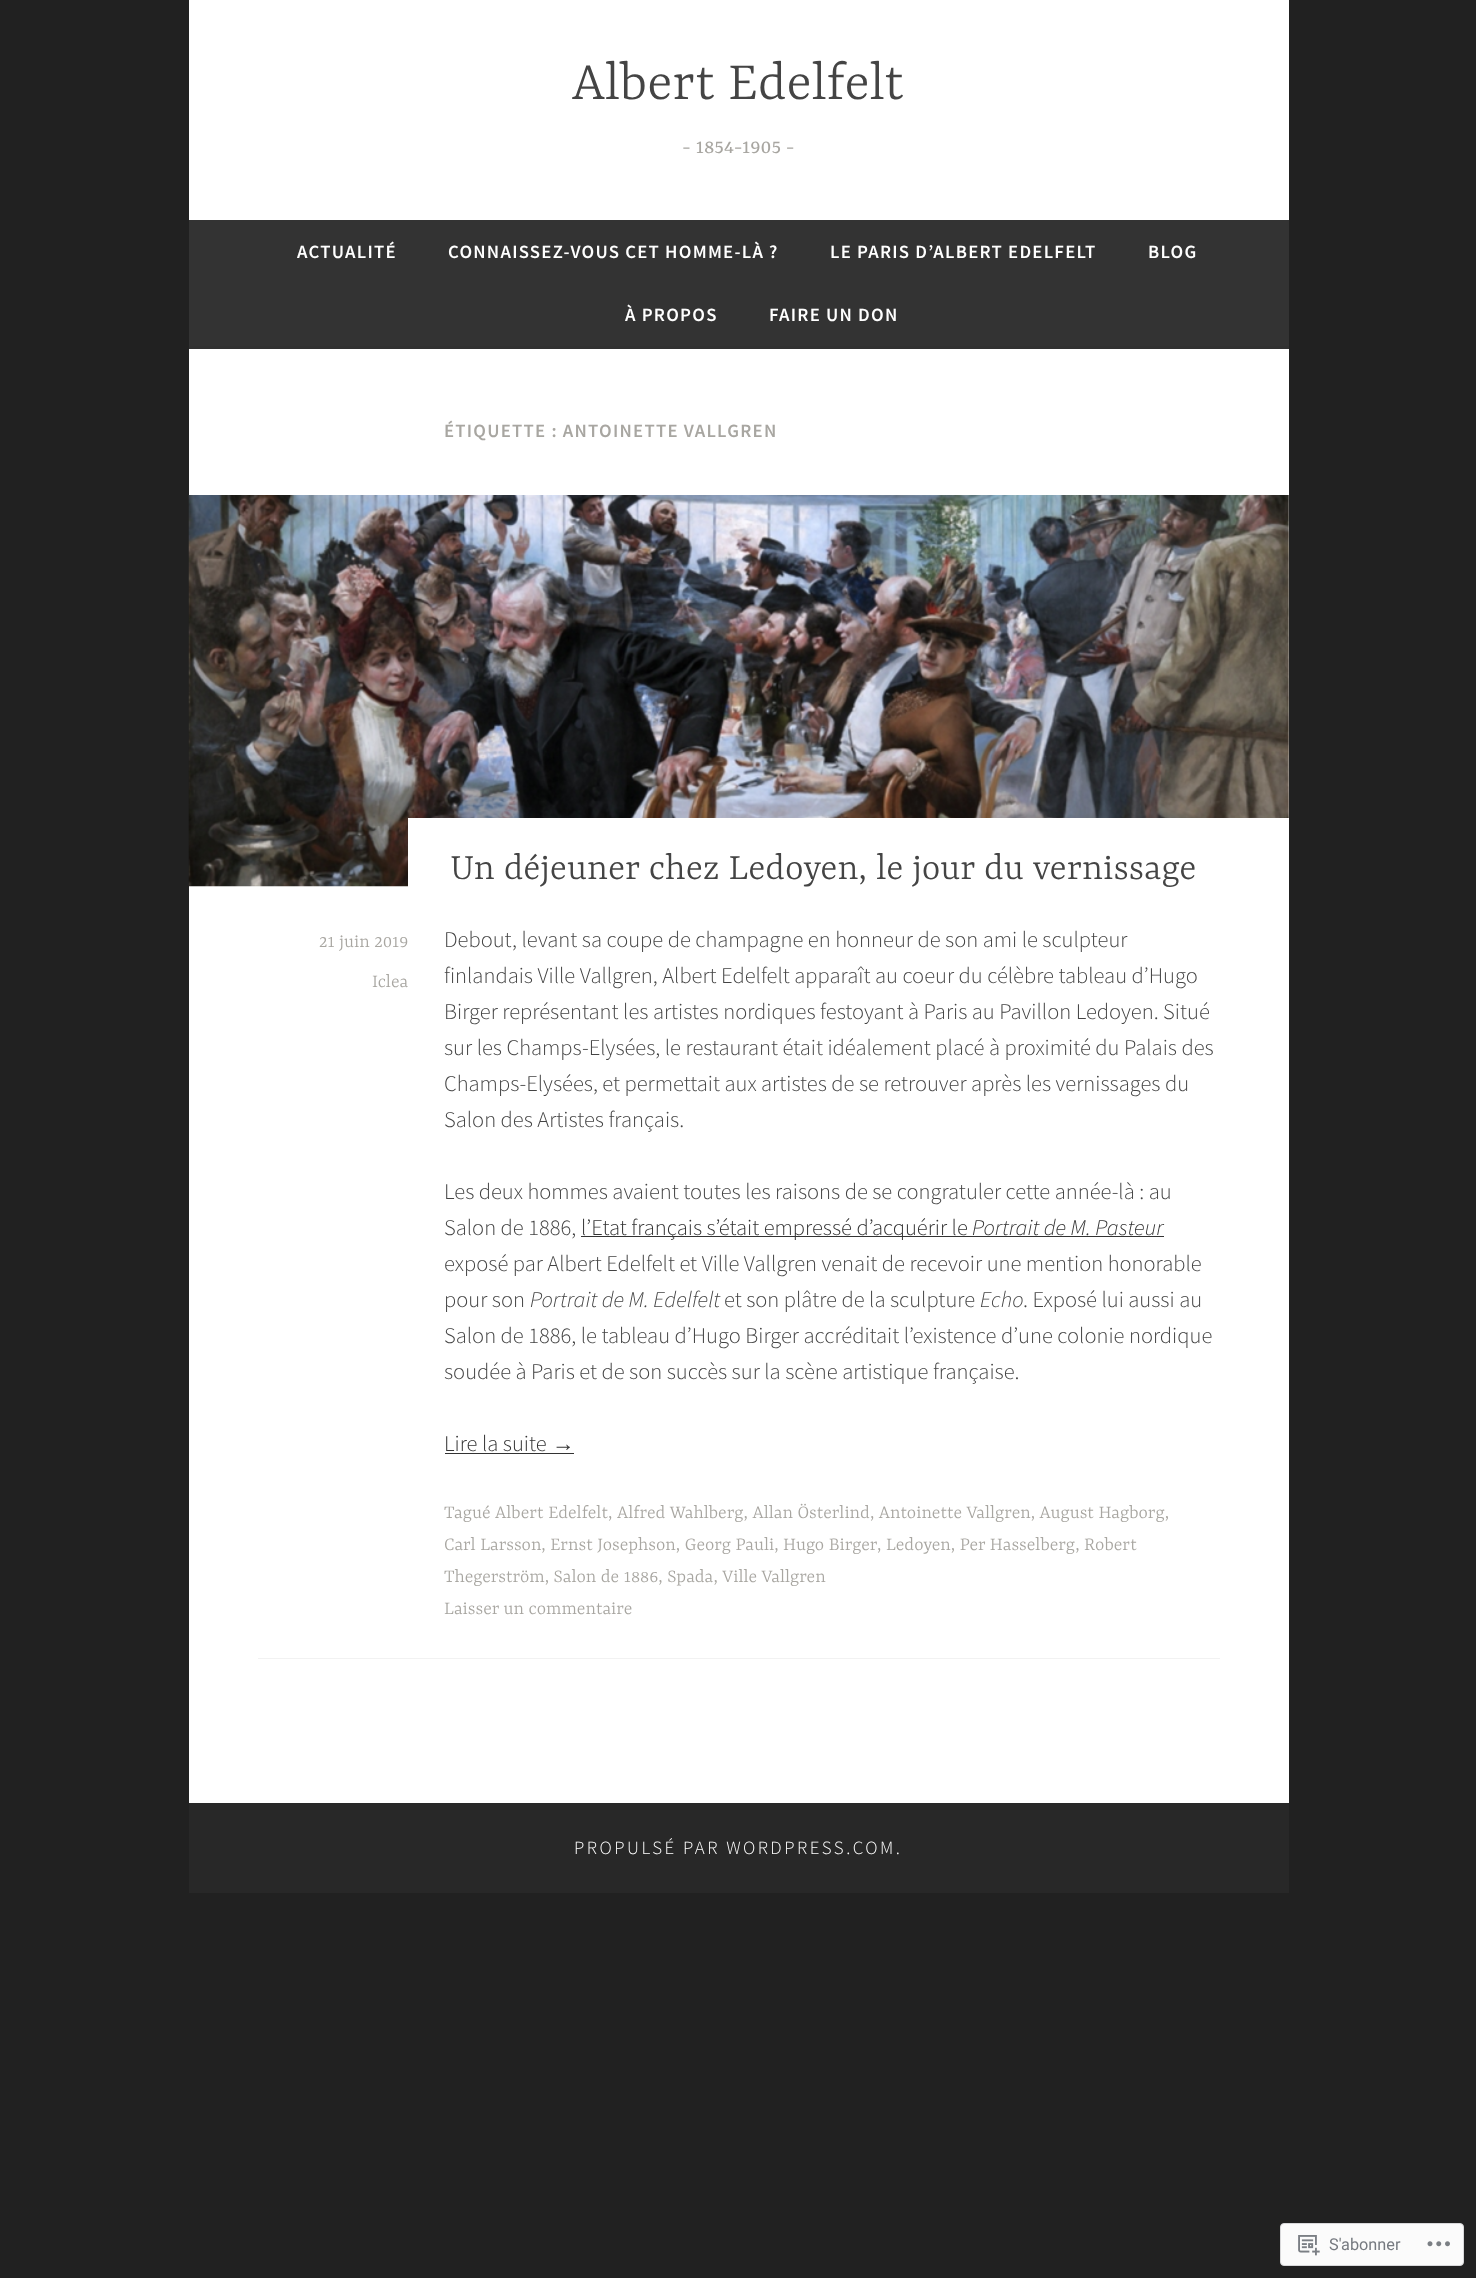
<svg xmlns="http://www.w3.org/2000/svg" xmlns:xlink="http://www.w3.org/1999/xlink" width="1476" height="2278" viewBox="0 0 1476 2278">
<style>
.cls-1{font:300 58.75px Yrsa;fill:#444444}
.cls-2{font:22.5px Yrsa;fill:#a8a6a1}
.cls-3{font:600 18.75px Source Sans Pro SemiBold;letter-spacing:1.25px;fill:#ffffff}
.cls-4{font:600 18.75px Source Sans Pro SemiBold;letter-spacing:1.25px;fill:#a8a6a1}
.cls-5{font:300 40px Yrsa;fill:#444444}
.cls-6{font:300 20px Yrsa;fill:#a8a6a1}
.cls-7{font:300 22.5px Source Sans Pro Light;fill:#444444}
.cls-8{font:300 22.5px Source Sans Pro Light;fill:#333333}
.cls-9{font:italic 300 22.5px Source Sans Pro Light;fill:#333333}
.cls-10{font:italic 300 22.5px Source Sans Pro Light;fill:#444444}
.cls-11{font:22.5px Liberation Sans;fill:#333333}
.cls-12{font:300 18.75px Source Sans Pro Light;letter-spacing:2.5px;fill:#ffffff}
.cls-13{font:16.25px Roboto;fill:#767a80}
</style>
<rect width="100%" height="100%" fill="#212121"/>
<rect fill="#ffffff" x="189" y="0" width="1100" height="220"/>
<rect fill="#333333" x="189" y="220" width="1100" height="126"/>
<rect fill="#313131" x="189" y="346" width="1100" height="3"/>
<rect fill="#ffffff" x="189" y="349" width="1100" height="1454"/>
<image xlink:href="image0.png" x="188" y="495" width="1101" height="392"/>
<rect fill="#ffffff" x="408" y="818" width="881" height="69"/>
<rect fill="#333333" x="581" y="1236" width="583" height="1"/>
<rect fill="#333333" x="445" y="1453" width="129" height="1"/>
<rect fill="#f2f2f2" x="258" y="1658" width="962" height="1"/>
<rect fill="#282828" x="189" y="1803" width="1100" height="90"/>
<rect fill="#fbfbfb" stroke="#d8d8da" x="1280.5" y="2223.5" width="183" height="42" rx="3.5"/>
<image xlink:href="image1.png" x="1298" y="2235" width="22" height="21"/>
<image xlink:href="image2.png" x="1427" y="2241" width="23" height="6"/>
<text class="cls-1" x="572" y="99">Albert Edelfelt</text>
<text class="cls-2" x="682" y="153">- 1854-1905 -</text>
<text class="cls-3" x="297" y="258">ACTUALITÉ</text>
<text class="cls-3" x="448" y="258">CONNAISSEZ-VOUS CET HOMME-LÀ ?</text>
<text class="cls-3" x="830" y="258">LE PARIS D’ALBERT EDELFELT</text>
<text class="cls-3" x="1148" y="258">BLOG</text>
<text class="cls-3" x="625" y="321">À PROPOS</text>
<text class="cls-3" x="769" y="321">FAIRE UN DON</text>
<text class="cls-4" x="444" y="437">ÉTIQUETTE : ANTOINETTE VALLGREN</text>
<text class="cls-5" x="450" y="879">Un déjeuner chez Ledoyen, le jour du vernissage</text>
<text class="cls-6" x="319" y="947">21 juin 2019</text>
<text class="cls-6" x="372" y="987">Iclea</text>
<text class="cls-7"><tspan x="444" y="947">Debout, levant sa coupe de champagne en honneur de son ami le sculpteur</tspan><tspan x="444" y="983">finlandais Ville Vallgren, Albert Edelfelt apparaît au coeur du célèbre tableau d’Hugo</tspan><tspan x="444" y="1019">Birger représentant les artistes nordiques festoyant à Paris au Pavillon Ledoyen. Situé</tspan><tspan x="444" y="1055">sur les Champs-Elysées, le restaurant était idéalement placé à proximité du Palais des</tspan><tspan x="444" y="1091">Champs-Elysées, et permettait aux artistes de se retrouver après les vernissages du</tspan><tspan x="444" y="1127">Salon des Artistes français.</tspan></text>
<text class="cls-7"><tspan x="444" y="1199">Les deux hommes avaient toutes les raisons de se congratuler cette année-là : au</tspan><tspan x="444" y="1235">Salon de 1886,</tspan></text>
<text class="cls-8" x="581" y="1235">l’Etat français s’était empressé d’acquérir le</text>
<text class="cls-9" x="972" y="1235">Portrait de M. Pasteur</text>
<text class="cls-7"><tspan x="444" y="1271">exposé par Albert Edelfelt et Ville Vallgren venait de recevoir une mention honorable</tspan><tspan x="444" y="1307">pour son</tspan></text>
<text class="cls-10" x="530" y="1307">Portrait de M. Edelfelt</text>
<text class="cls-7" x="724" y="1307">et son plâtre de la sculpture</text>
<text class="cls-10" x="980" y="1307">Echo</text>
<text class="cls-7" x="1023" y="1307">. Exposé lui aussi au</text>
<text class="cls-7"><tspan x="444" y="1343">Salon de 1886, le tableau d’Hugo Birger accréditait l’existence d’une colonie nordique</tspan><tspan x="444" y="1379">soudée à Paris et de son succès sur la scène artistique française.</tspan></text>
<text class="cls-8" x="444" y="1451">Lire la suite</text>
<text class="cls-11" x="552" y="1451">→</text>
<text class="cls-6"><tspan x="444" y="1518">Tagué Albert Edelfelt, Alfred Wahlberg, Allan Österlind, Antoinette Vallgren, August Hagborg,</tspan><tspan x="444" y="1550">Carl Larsson, Ernst Josephson, Georg Pauli, Hugo Birger, Ledoyen, Per Hasselberg, Robert</tspan><tspan x="444" y="1582">Thegerström, Salon de 1886, Spada, Ville Vallgren</tspan><tspan x="444" y="1614">Laisser un commentaire</tspan></text>
<text class="cls-12" x="574" y="1854">PROPULSÉ PAR WORDPRESS.COM.</text>
<text class="cls-13" x="1329" y="2250">S'abonner</text>
</svg>
